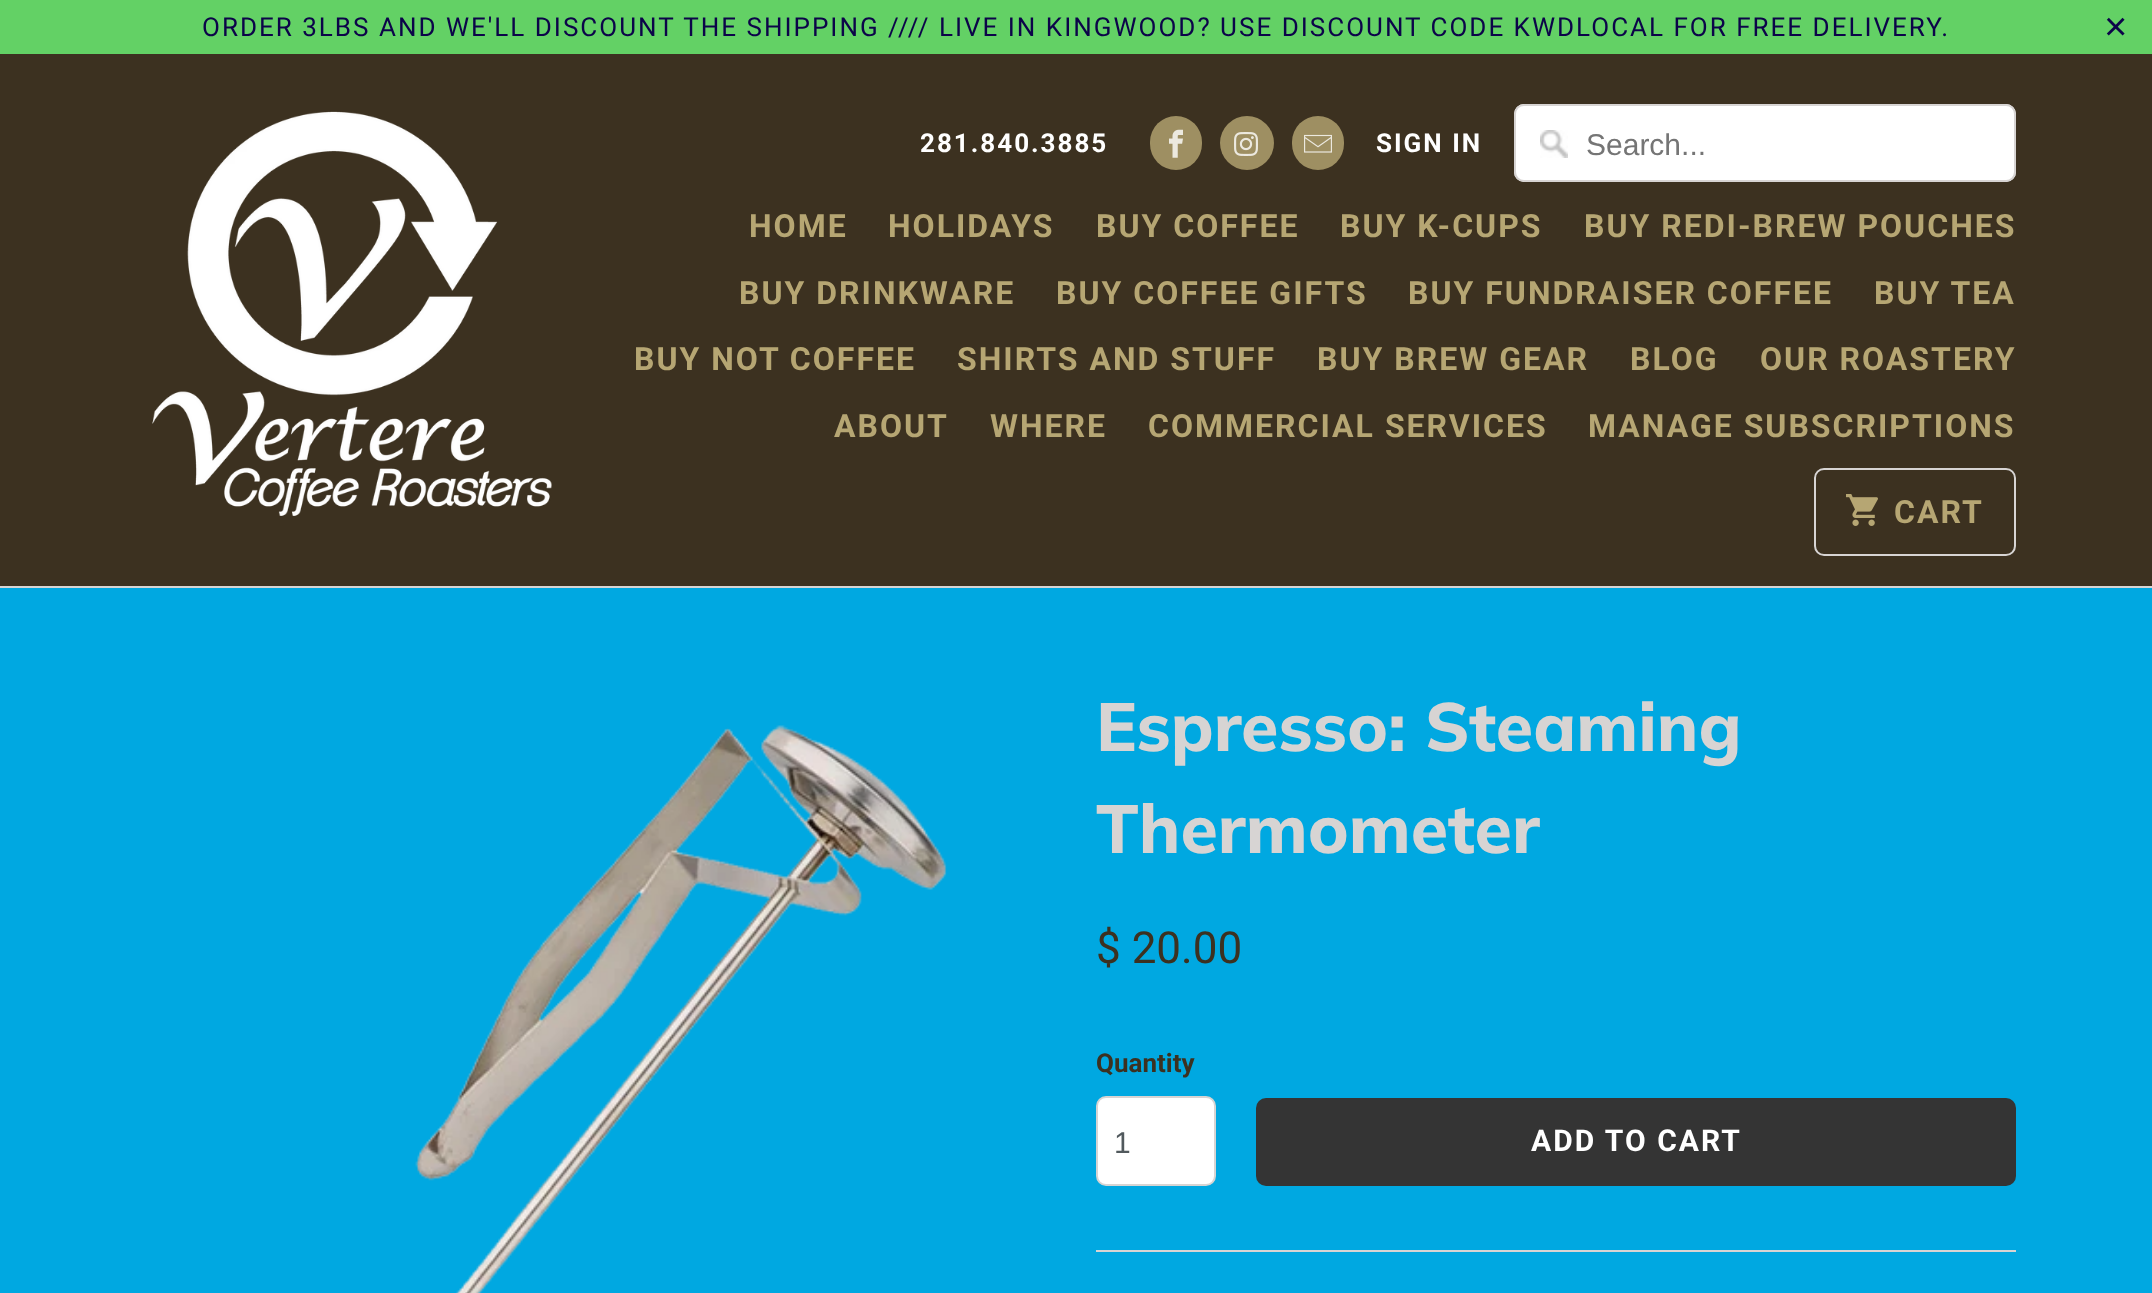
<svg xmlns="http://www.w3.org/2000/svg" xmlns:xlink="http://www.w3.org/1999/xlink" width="2152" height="1293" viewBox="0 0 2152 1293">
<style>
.cls-1{font:26px Roboto;letter-spacing:2px;fill:#0c0449}
.cls-2{font:40px Liberation Sans;letter-spacing:2px;fill:#0c0449}
.cls-3{font:bold 26px Roboto;letter-spacing:2px;fill:#ffffff}
.cls-4{font:30px Liberation Sans;fill:#757575}
.cls-5{font:bold 32px Roboto;letter-spacing:2px;fill:#b6a673}
.cls-6{font:800 68px Muli;fill:#d7d4d3}
.cls-7{font:44px Roboto;fill:#3c3120}
.cls-8{font:bold 26px Roboto;fill:#3c3120}
.cls-9{font:30px Liberation Sans;fill:#51595d}
.cls-10{font:bold 30px Roboto;letter-spacing:2px;fill:#ffffff}
</style>
<rect width="100%" height="100%" fill="#00a8e1"/>
<rect fill="#63d165" x="0" y="0" width="2152" height="54"/>
<rect fill="#3c3120" x="0" y="54" width="2152" height="532"/>
<rect fill="#d7d4d3" x="0" y="586" width="2152" height="2"/>
<image xlink:href="image0.png" x="152" y="111" width="400" height="405"/>
<rect fill="#9e8f62" x="1150" y="116" width="52" height="54" rx="26"/>
<image xlink:href="image1.png" x="1169" y="129" width="14" height="29"/>
<circle fill="#9e8f62" cx="1247" cy="143" r="27"/>
<image xlink:href="image2.png" x="1234" y="132" width="24" height="24"/>
<rect fill="#9e8f62" x="1292" y="116" width="52" height="54" rx="26"/>
<image xlink:href="image3.png" x="1304" y="134" width="28" height="19"/>
<rect fill="#ffffff" x="1514" y="104" width="502" height="78" rx="10"/>
<image xlink:href="image4.png" x="1540" y="130" width="28" height="28"/>
<rect fill="none" stroke="#d7d4d3" stroke-width="2" x="1515" y="105" width="500" height="76" rx="9"/>
<rect fill="none" stroke="#d7d4d3" stroke-width="2" x="1815" y="469" width="200" height="86" rx="9"/>
<image xlink:href="image5.png" x="1846" y="494" width="32" height="32"/>
<image xlink:href="image6.png" x="415" y="725" width="532" height="568"/>
<rect fill="#ffffff" stroke="#d7d4d3" stroke-width="2" x="1097" y="1097" width="118" height="88" rx="9"/>
<rect fill="#343434" x="1256" y="1098" width="760" height="88" rx="10"/>
<rect fill="#d7d4d3" x="1096" y="1250" width="920" height="2"/>
<text class="cls-1" x="202" y="36">ORDER 3LBS AND WE'LL DISCOUNT THE SHIPPING //// LIVE IN KINGWOOD? USE DISCOUNT CODE KWDLOCAL FOR FREE DELIVERY.</text>
<text class="cls-2" x="2104" y="40">×</text>
<text class="cls-3" x="920" y="152">281.840.3885</text>
<text class="cls-3" x="1376" y="152">SIGN IN</text>
<text class="cls-4" x="1586" y="155">Search...</text>
<text class="cls-5" x="749" y="237">HOME</text>
<text class="cls-5" x="888" y="237">HOLIDAYS</text>
<text class="cls-5" x="1096" y="237">BUY COFFEE</text>
<text class="cls-5" x="1340" y="237">BUY K-CUPS</text>
<text class="cls-5" x="1584" y="237">BUY REDI-BREW POUCHES</text>
<text class="cls-5" x="739" y="304">BUY DRINKWARE</text>
<text class="cls-5" x="1056" y="304">BUY COFFEE GIFTS</text>
<text class="cls-5" x="1408" y="304">BUY FUNDRAISER COFFEE</text>
<text class="cls-5" x="1874" y="304">BUY TEA</text>
<text class="cls-5" x="634" y="370">BUY NOT COFFEE</text>
<text class="cls-5" x="957" y="370">SHIRTS AND STUFF</text>
<text class="cls-5" x="1317" y="370">BUY BREW GEAR</text>
<text class="cls-5" x="1630" y="370">BLOG</text>
<text class="cls-5" x="1760" y="370">OUR ROASTERY</text>
<text class="cls-5" x="834" y="437">ABOUT</text>
<text class="cls-5" x="990" y="437">WHERE</text>
<text class="cls-5" x="1148" y="437">COMMERCIAL SERVICES</text>
<text class="cls-5" x="1588" y="437">MANAGE SUBSCRIPTIONS</text>
<text class="cls-5" x="1894" y="523">CART</text>
<text class="cls-6"><tspan x="1096" y="751">Espresso: Steaming</tspan><tspan x="1096" y="853">Thermometer</tspan></text>
<text class="cls-7" x="1096" y="963">$ 20.00</text>
<text class="cls-8" x="1096" y="1072">Quantity</text>
<text class="cls-9" x="1114" y="1153">1</text>
<text class="cls-10" x="1531" y="1151">ADD TO CART</text>
</svg>
